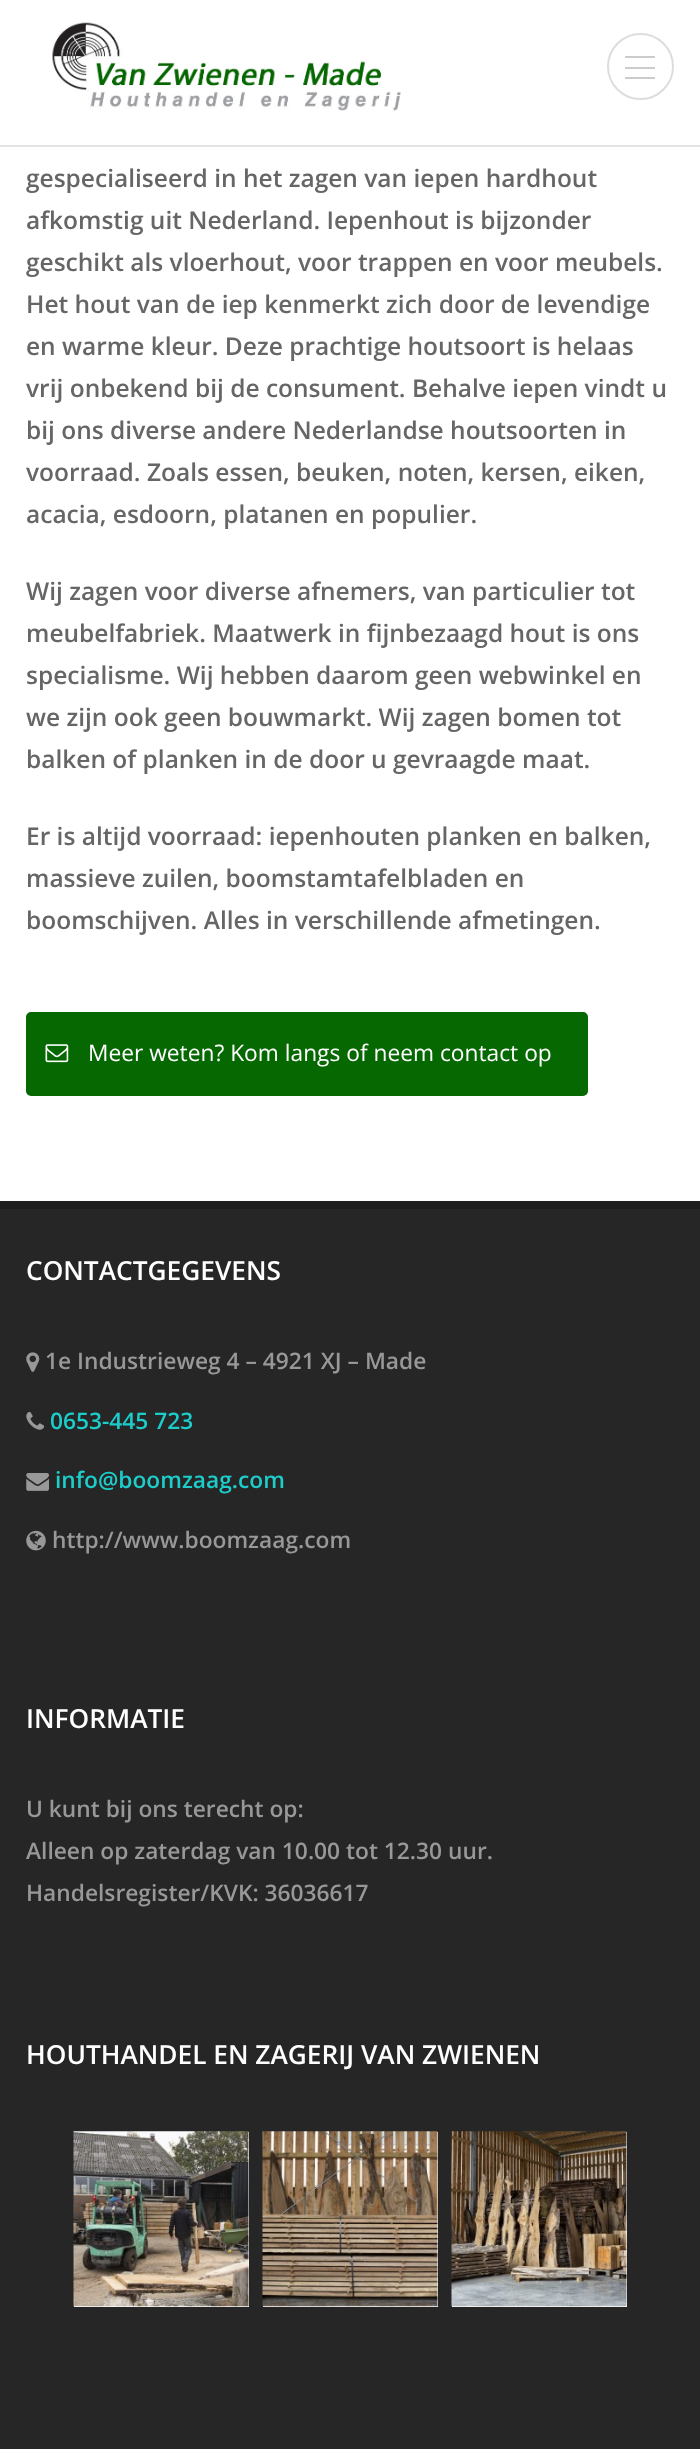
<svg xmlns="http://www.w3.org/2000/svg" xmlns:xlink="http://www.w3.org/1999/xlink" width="700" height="2449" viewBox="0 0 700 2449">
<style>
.cls-1{font:600 24.5px Open Sans;fill:#666666}
.cls-2{font:22.75px Open Sans;fill:#ffffff}
.cls-3{font:600 26.25px Open Sans;fill:#ffffff}
.cls-4{font:600 22.75px Open Sans;fill:#989898}
.cls-5{font:600 22.75px Open Sans;fill:#1ccdca}
</style>
<rect width="100%" height="100%" fill="#ffffff"/>
<rect fill="#e4e4e4" x="0" y="145" width="700" height="2"/>
<image xlink:href="image0.png" x="52" y="22" width="349" height="89"/>
<circle fill="none" stroke="#dddddd" stroke-width="2" cx="640.5" cy="66.5" r="32.5"/>
<rect fill="#cccccc" x="625" y="67" width="30" height="2"/>
<rect fill="#cccccc" x="625" y="56" width="30" height="2"/>
<rect fill="#cccccc" x="625" y="77" width="30" height="2"/>
<rect fill="#056800" stroke="#056800" stroke-width="2" x="27" y="1013" width="560" height="82" rx="4"/>
<image xlink:href="image1.png" x="45" y="1044" width="24" height="19"/>
<rect fill="#262626" x="0" y="1209" width="700" height="1240"/>
<rect fill="#1e1e1e" x="0" y="1201" width="700" height="8"/>
<image xlink:href="image2.png" x="26" y="1352" width="14" height="20"/>
<image xlink:href="image3.png" x="26" y="1411" width="19" height="19"/>
<image xlink:href="image4.png" x="26" y="1473" width="23" height="18"/>
<image xlink:href="image5.png" x="26" y="1530" width="20" height="21"/>
<rect fill="#ffffff" x="74" y="2132" width="175" height="175"/>
<image xlink:href="image6.png" x="73" y="2131" width="176" height="176"/>
<rect fill="#ffffff" x="263" y="2132" width="175" height="175"/>
<image xlink:href="image7.png" x="262" y="2131" width="176" height="176"/>
<rect fill="#ffffff" x="452" y="2132" width="175" height="175"/>
<image xlink:href="image8.png" x="451" y="2131" width="176" height="176"/>
<text class="cls-1"><tspan x="26" y="187">gespecialiseerd in het zagen van iepen hardhout</tspan><tspan x="26" y="229">afkomstig uit Nederland. Iepenhout is bijzonder</tspan><tspan x="26" y="271">geschikt als vloerhout, voor trappen en voor meubels.</tspan><tspan x="26" y="313">Het hout van de iep kenmerkt zich door de levendige</tspan><tspan x="26" y="355">en warme kleur. Deze prachtige houtsoort is helaas</tspan><tspan x="26" y="397">vrij onbekend bij de consument. Behalve iepen vindt u</tspan><tspan x="26" y="439">bij ons diverse andere Nederlandse houtsoorten in</tspan><tspan x="26" y="481">voorraad. Zoals essen, beuken, noten, kersen, eiken,</tspan><tspan x="26" y="523">acacia, esdoorn, platanen en populier.</tspan></text>
<text class="cls-1"><tspan x="26" y="600">Wij zagen voor diverse afnemers, van particulier tot</tspan><tspan x="26" y="642">meubelfabriek. Maatwerk in fijnbezaagd hout is ons</tspan><tspan x="26" y="684">specialisme. Wij hebben daarom geen webwinkel en</tspan><tspan x="26" y="726">we zijn ook geen bouwmarkt. Wij zagen bomen tot</tspan><tspan x="26" y="768">balken of planken in de door u gevraagde maat.</tspan></text>
<text class="cls-1"><tspan x="26" y="845">Er is altijd voorraad: iepenhouten planken en balken,</tspan><tspan x="26" y="887">massieve zuilen, boomstamtafelbladen en</tspan><tspan x="26" y="929">boomschijven. Alles in verschillende afmetingen.</tspan></text>
<text class="cls-2" x="88" y="1061">Meer weten? Kom langs of neem contact op</text>
<text class="cls-3" x="26" y="1280">CONTACTGEGEVENS</text>
<text class="cls-4" x="45" y="1369">1e Industrieweg 4 – 4921 XJ – Made</text>
<text class="cls-5" x="50" y="1429">0653-445 723</text>
<text class="cls-5" x="55" y="1488">info@boomzaag.com</text>
<text class="cls-4" x="52" y="1548">http://www.boomzaag.com</text>
<text class="cls-3" x="26" y="1728">INFORMATIE</text>
<text class="cls-4"><tspan x="26" y="1817">U kunt bij ons terecht op:</tspan><tspan x="26" y="1859">Alleen op zaterdag van 10.00 tot 12.30 uur.</tspan><tspan x="26" y="1901">Handelsregister/KVK: 36036617</tspan></text>
<text class="cls-3" x="26" y="2064">HOUTHANDEL EN ZAGERIJ VAN ZWIENEN</text>
</svg>
